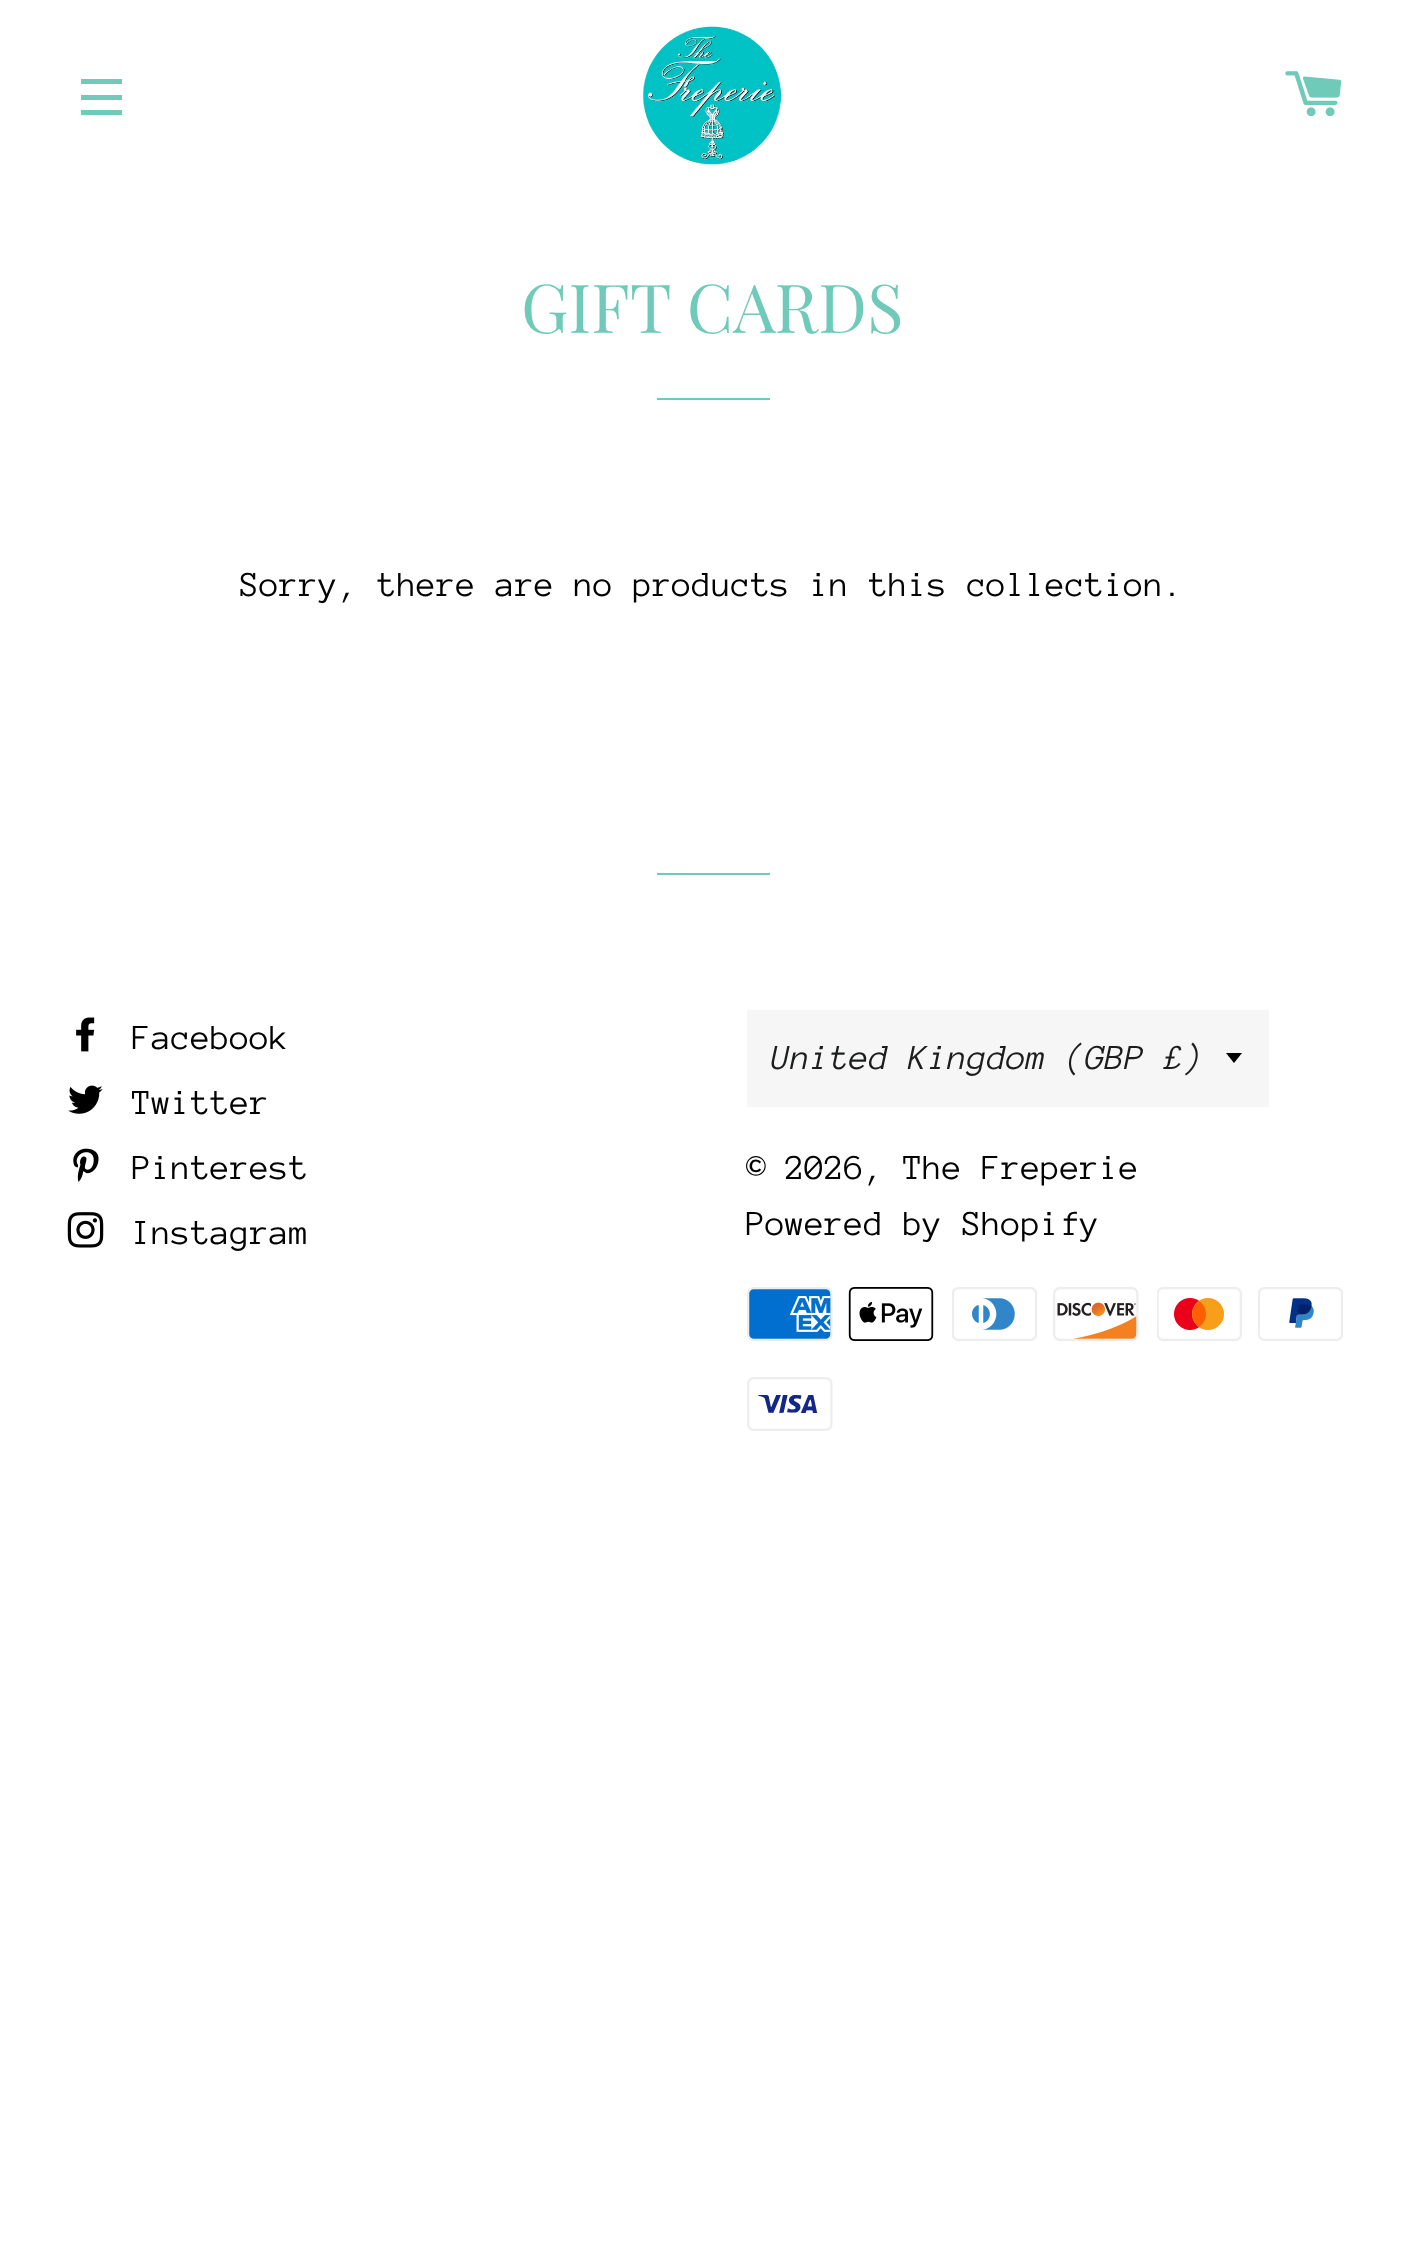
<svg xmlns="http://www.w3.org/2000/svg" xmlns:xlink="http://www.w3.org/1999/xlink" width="1423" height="2242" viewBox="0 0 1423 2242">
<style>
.cls-1{font:67.5px Playfair Display;fill:#6fcaba}
.cls-2{font:36px Anonymous Pro;fill:#000000}
.cls-3{font:italic 36px Anonymous Pro;fill:#1c1d1d}
</style>
<rect width="100%" height="100%" fill="#ffffff"/>
<rect fill="#6fcaba" x="81" y="79" width="41" height="5"/>
<rect fill="#6fcaba" x="81" y="95" width="41" height="5"/>
<rect fill="#6fcaba" x="81" y="110" width="41" height="5"/>
<image xlink:href="image0.png" x="640" y="24" width="143" height="142"/>
<image xlink:href="image1.png" x="1285" y="71" width="57" height="46"/>
<rect fill="#6fcaba" x="657" y="398" width="113" height="2"/>
<rect fill="#6fcaba" x="657" y="873" width="113" height="2"/>
<image xlink:href="image2.png" x="76" y="1017" width="19" height="35"/>
<image xlink:href="image3.png" x="68" y="1085" width="35" height="29"/>
<image xlink:href="image4.png" x="73" y="1148" width="26" height="34"/>
<image xlink:href="image5.png" x="67" y="1212" width="37" height="36"/>
<rect fill="#f6f6f6" x="747" y="1010" width="522" height="97"/>
<path fill="#000000" d="M1226 1053L1234 1063L1242 1053Z"/>
<image xlink:href="image6.png" x="747" y="1287" width="86" height="54"/>
<image xlink:href="image7.png" x="848" y="1287" width="86" height="54"/>
<image xlink:href="image8.png" x="952" y="1287" width="85" height="54"/>
<image xlink:href="image9.png" x="1053" y="1287" width="86" height="54"/>
<image xlink:href="image10.png" x="1157" y="1287" width="85" height="54"/>
<image xlink:href="image11.png" x="1258" y="1287" width="85" height="54"/>
<image xlink:href="image12.png" x="747" y="1377" width="86" height="54"/>
<text class="cls-1" x="521" y="333">GIFT CARDS</text>
<text class="cls-2" x="240" y="596">Sorry, there are no products in this collection.</text>
<text class="cls-2"><tspan x="132" y="1049">Facebook</tspan><tspan x="132" y="1114">Twitter</tspan><tspan x="132" y="1179">Pinterest</tspan><tspan x="132" y="1244">Instagram</tspan></text>
<text class="cls-3" x="771" y="1069">United Kingdom (GBP £)</text>
<text class="cls-2"><tspan x="746" y="1179">© 2026, The Freperie</tspan><tspan x="746" y="1235">Powered by Shopify</tspan></text>
</svg>
